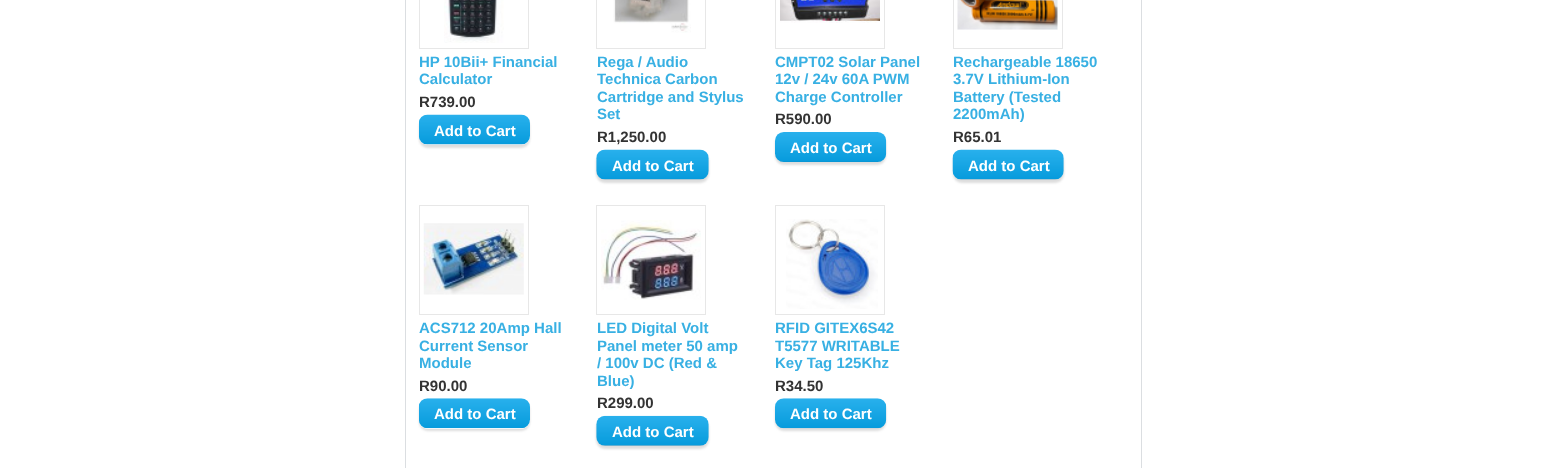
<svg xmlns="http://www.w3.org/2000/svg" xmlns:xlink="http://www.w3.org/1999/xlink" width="1547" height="468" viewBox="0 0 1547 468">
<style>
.cls-1{font:bold 15px Liberation Sans;fill:#38b0e3}
.cls-2{font:bold 15px Liberation Sans;fill:#333333}
.cls-3{font:bold 15px Liberation Sans;fill:#ffffff}
</style>
<defs>
<clipPath id="clip1"><path d="M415 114H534V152H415ZM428 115H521C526 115 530 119 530 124V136C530 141 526 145 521 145H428C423 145 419 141 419 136V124C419 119 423 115 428 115Z" clip-rule="evenodd"/></clipPath>
<clipPath id="clip2"><path d="M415 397H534V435H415ZM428 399H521C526 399 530 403 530 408V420C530 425 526 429 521 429H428C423 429 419 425 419 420V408C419 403 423 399 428 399Z" clip-rule="evenodd"/></clipPath>
</defs>
<rect width="100%" height="100%" fill="#ffffff"/>
<path fill="#dbdee1" fill-rule="evenodd" d="M405-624H1142V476C1142 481 1139 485 1134 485H414C409 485 405 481 405 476ZM406-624H1141V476C1141 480 1138 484 1134 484H414C410 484 406 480 406 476Z"/>
<rect fill="none" stroke="#e7e7e7" x="419.5" y="-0.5" width="109" height="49"/>
<image xlink:href="image0.png" x="444" y="0" width="60" height="43"/>
<g clip-path="url(#clip1)">
<rect fill="#dddddd" filter="blur(1px)" x="419" y="118" width="111" height="30" rx="9"/>
</g>
<image xlink:href="image1.png" x="419" y="114" width="111" height="31"/>
<rect fill="none" stroke="#e7e7e7" x="596.5" y="-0.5" width="109" height="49"/>
<image xlink:href="image2.png" x="613" y="0" width="78" height="33"/>
<rect fill="#dddddd" filter="blur(1px)" x="596" y="153" width="113" height="30" rx="9"/>
<image xlink:href="image3.png" x="596" y="149" width="113" height="31"/>
<rect fill="none" stroke="#e7e7e7" x="775.5" y="-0.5" width="109" height="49"/>
<image xlink:href="image4.png" x="780" y="0" width="100" height="23"/>
<rect fill="#dddddd" filter="blur(1px)" x="775" y="135" width="111" height="30" rx="9"/>
<image xlink:href="image5.png" x="775" y="132" width="112" height="30"/>
<rect fill="none" stroke="#e7e7e7" x="953.5" y="-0.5" width="109" height="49"/>
<image xlink:href="image6.png" x="957" y="0" width="101" height="30"/>
<rect fill="#dddddd" filter="blur(1px)" x="953" y="153" width="111" height="30" rx="9"/>
<image xlink:href="image7.png" x="952" y="149" width="112" height="31"/>
<rect fill="none" stroke="#e7e7e7" x="419.5" y="205.5" width="109" height="109"/>
<image xlink:href="image8.png" x="423" y="223" width="101" height="72"/>
<g clip-path="url(#clip2)">
<rect fill="#dddddd" filter="blur(1px)" x="419" y="401" width="111" height="30" rx="9"/>
</g>
<image xlink:href="image9.png" x="419" y="398" width="111" height="31"/>
<rect fill="none" stroke="#e7e7e7" x="596.5" y="205.5" width="109" height="109"/>
<image xlink:href="image10.png" x="601" y="220" width="100" height="80"/>
<rect fill="#dddddd" filter="blur(1px)" x="596" y="419" width="113" height="30" rx="9"/>
<image xlink:href="image11.png" x="596" y="415" width="113" height="31"/>
<rect fill="none" stroke="#e7e7e7" x="775.5" y="205.5" width="109" height="109"/>
<image xlink:href="image12.png" x="786" y="219" width="92" height="90"/>
<rect fill="#dddddd" filter="blur(1px)" x="775" y="401" width="111" height="30" rx="9"/>
<image xlink:href="image13.png" x="775" y="398" width="112" height="31"/>
<text class="cls-1"><tspan x="419" y="67">HP 10Bii+ Financial</tspan><tspan x="419" y="84">Calculator</tspan></text>
<text class="cls-2" x="419" y="107">R739.00</text>
<text class="cls-3" x="434" y="136">Add to Cart</text>
<text class="cls-1"><tspan x="597" y="67">Rega / Audio</tspan><tspan x="597" y="84">Technica Carbon</tspan><tspan x="597" y="102">Cartridge and Stylus</tspan><tspan x="597" y="119">Set</tspan></text>
<text class="cls-2" x="597" y="142">R1,250.00</text>
<text class="cls-3" x="612" y="171">Add to Cart</text>
<text class="cls-1"><tspan x="775" y="67">CMPT02 Solar Panel</tspan><tspan x="775" y="84">12v / 24v 60A PWM</tspan><tspan x="775" y="102">Charge Controller</tspan></text>
<text class="cls-2" x="775" y="124">R590.00</text>
<text class="cls-3" x="790" y="153">Add to Cart</text>
<text class="cls-1"><tspan x="953" y="67">Rechargeable 18650</tspan><tspan x="953" y="84">3.7V Lithium-Ion</tspan><tspan x="953" y="102">Battery (Tested</tspan><tspan x="953" y="119">2200mAh)</tspan></text>
<text class="cls-2" x="953" y="142">R65.01</text>
<text class="cls-3" x="968" y="171">Add to Cart</text>
<text class="cls-1"><tspan x="419" y="333">ACS712 20Amp Hall</tspan><tspan x="419" y="351">Current Sensor</tspan><tspan x="419" y="368">Module</tspan></text>
<text class="cls-2" x="419" y="391">R90.00</text>
<text class="cls-3" x="434" y="419">Add to Cart</text>
<text class="cls-1"><tspan x="597" y="333">LED Digital Volt</tspan><tspan x="597" y="351">Panel meter 50 amp</tspan><tspan x="597" y="368">/ 100v DC (Red &amp;</tspan><tspan x="597" y="386">Blue)</tspan></text>
<text class="cls-2" x="597" y="408">R299.00</text>
<text class="cls-3" x="612" y="437">Add to Cart</text>
<text class="cls-1"><tspan x="775" y="333">RFID GITEX6S42</tspan><tspan x="775" y="351">T5577 WRITABLE</tspan><tspan x="775" y="368">Key Tag 125Khz</tspan></text>
<text class="cls-2" x="775" y="391">R34.50</text>
<text class="cls-3" x="790" y="419">Add to Cart</text>
</svg>
